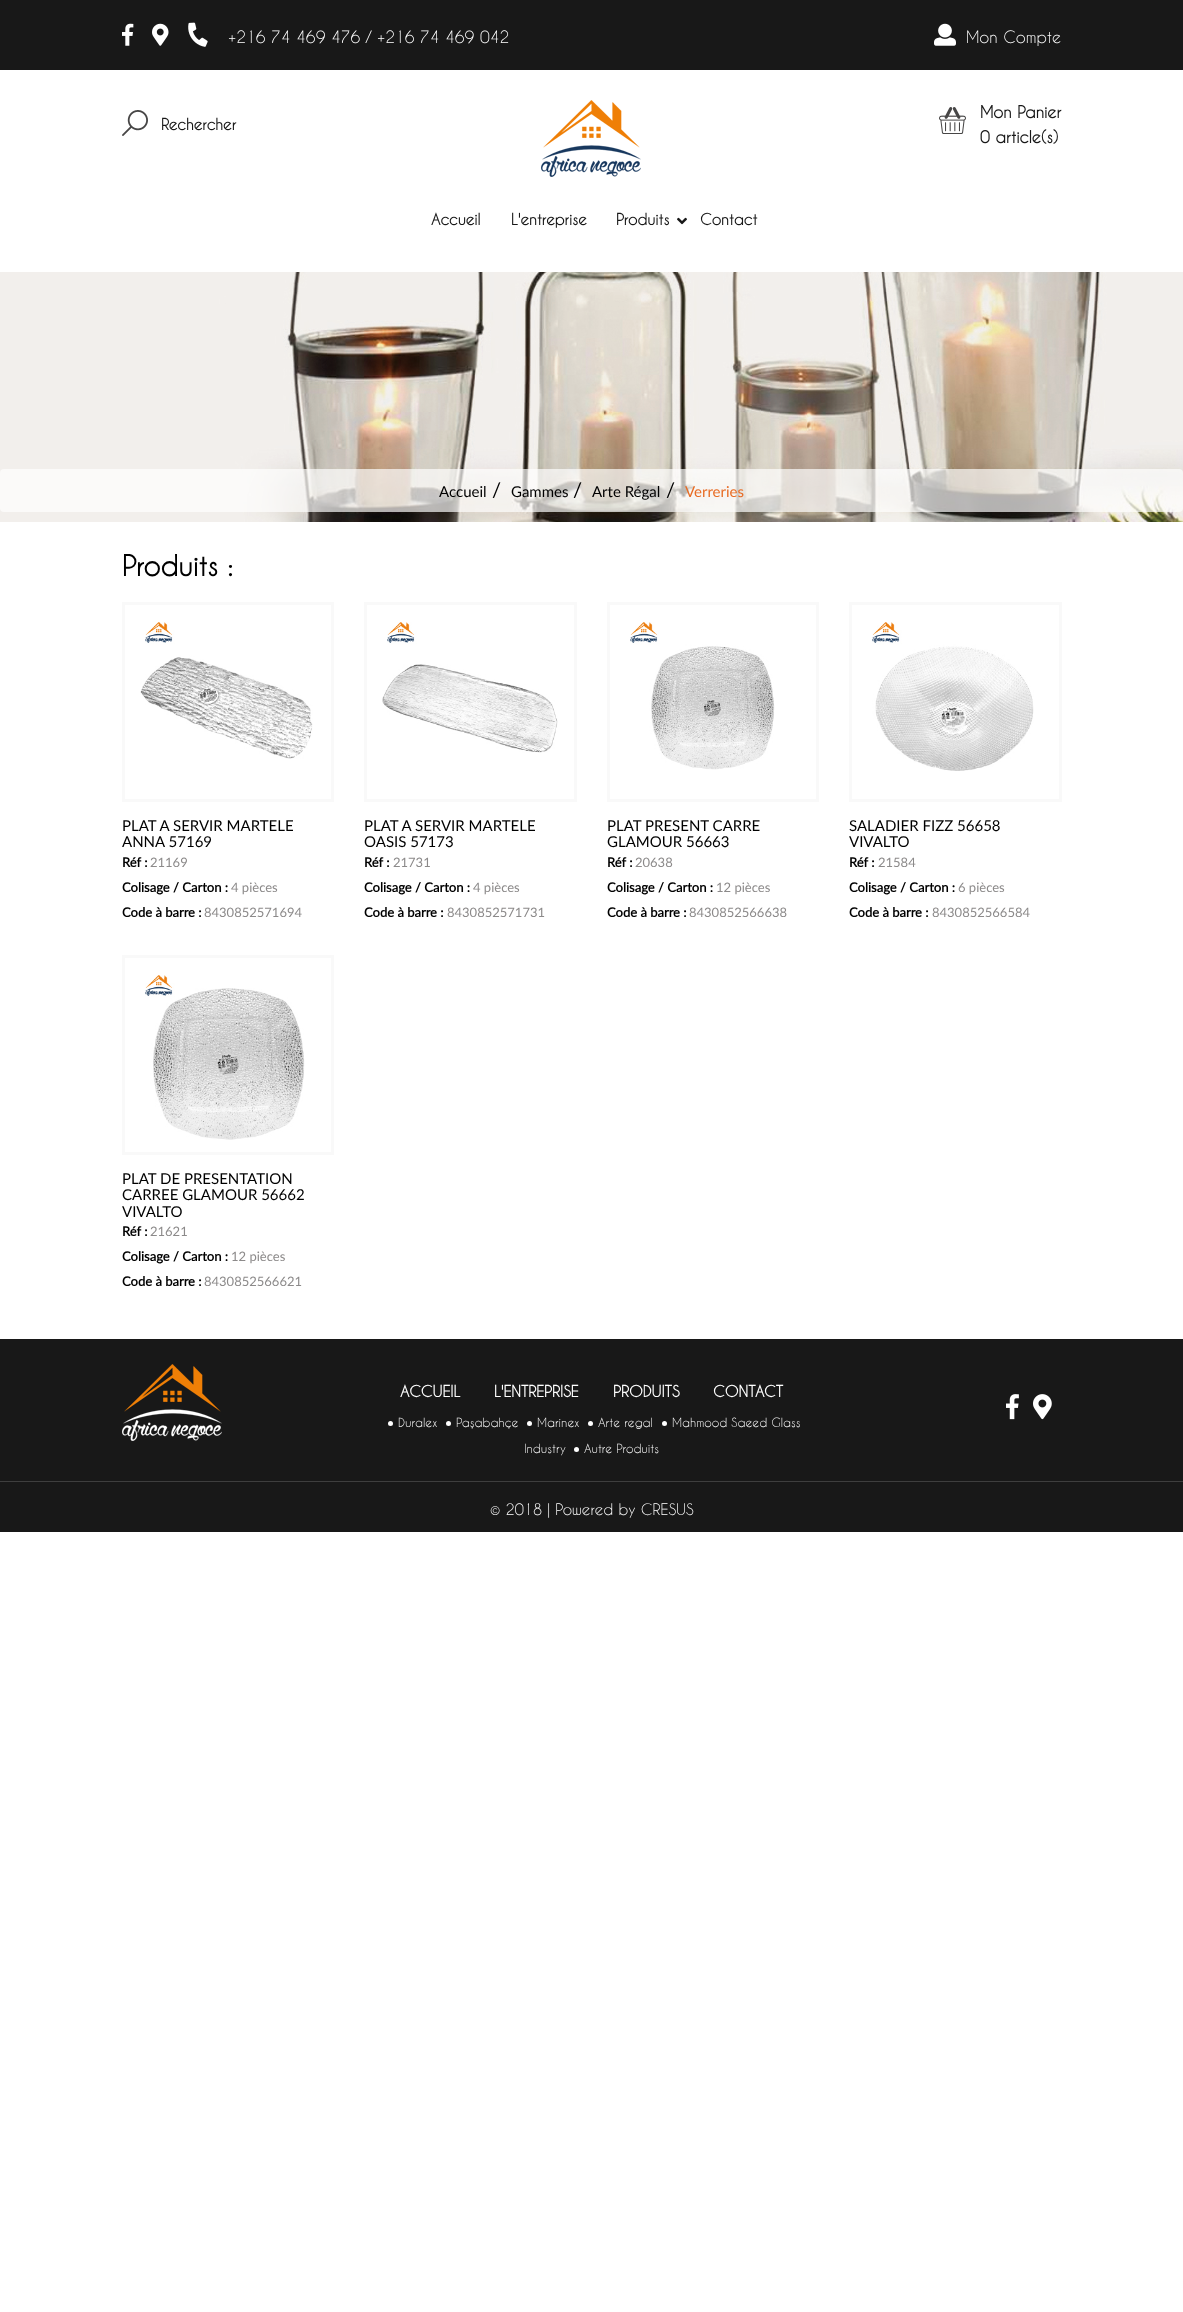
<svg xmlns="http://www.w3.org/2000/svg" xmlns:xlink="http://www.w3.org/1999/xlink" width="1183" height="2312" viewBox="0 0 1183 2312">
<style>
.cls-1{font:300 16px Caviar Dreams;fill:#ffffff}
.cls-2{font:bold 15px Caviar Dreams;fill:#181818}
.cls-3{font:bold 16px Caviar Dreams;fill:#181818}
.cls-4{font:15px Lato;fill:#000000}
.cls-5{font:20px Lato;fill:#000000}
.cls-6{font:15px Lato;fill:#e86c24}
.cls-7{font:bold 27px Caviar Dreams;fill:#000000}
.cls-8{font:bold 13px Lato;fill:#000000}
.cls-9{font:13px Lato;fill:#8c8a8a}
.cls-10{font:bold 15px Caviar Dreams;fill:#ffffff}
.cls-11{font:300 12px Caviar Dreams;fill:#ffffff}
.cls-12{font:300 15px Caviar Dreams;fill:#ffffff}
</style>
<rect width="100%" height="100%" fill="#ffffff"/>
<rect fill="#181818" x="0" y="0" width="1183" height="70"/>
<image xlink:href="image0.png" x="122" y="23" width="12" height="23"/>
<image xlink:href="image1.png" x="152" y="23" width="17" height="23"/>
<image xlink:href="image2.png" x="188" y="22" width="20" height="25"/>
<image xlink:href="image3.png" x="934" y="23" width="22" height="23"/>
<image xlink:href="image4.png" x="122" y="110" width="26" height="26"/>
<image xlink:href="image5.png" x="541" y="100" width="100" height="77"/>
<image xlink:href="image6.png" x="939" y="107" width="27" height="27"/>
<image xlink:href="image7.png" x="677" y="217" width="10" height="8"/>
<image xlink:href="image8.png" x="0" y="272" width="1183" height="250"/>
<rect fill="#ffffff" fill-opacity="0.68" x="0" y="469" width="1183" height="43" rx="4"/>
<rect fill="none" stroke="#f9f9f9" stroke-width="3" x="123.5" y="603.5" width="209" height="197"/>
<image xlink:href="image9.png" x="140" y="622" width="173" height="137"/>
<rect fill="none" stroke="#f9f9f9" stroke-width="3" x="365.5" y="603.5" width="210" height="197"/>
<image xlink:href="image10.png" x="382" y="622" width="176" height="131"/>
<rect fill="none" stroke="#f9f9f9" stroke-width="3" x="608.5" y="603.5" width="209" height="197"/>
<image xlink:href="image11.png" x="630" y="622" width="145" height="148"/>
<rect fill="none" stroke="#f9f9f9" stroke-width="3" x="850.5" y="603.5" width="210" height="197"/>
<image xlink:href="image12.png" x="872" y="622" width="162" height="149"/>
<rect fill="none" stroke="#f9f9f9" stroke-width="3" x="123.5" y="956.5" width="209" height="197"/>
<image xlink:href="image13.png" x="145" y="975" width="160" height="165"/>
<rect fill="#181818" x="0" y="1339" width="1183" height="193"/>
<image xlink:href="image14.png" x="122" y="1364" width="100" height="77"/>
<circle fill="#ffffff" cx="390.5" cy="1423.5" r="2.5"/>
<circle fill="#ffffff" cx="448.5" cy="1423.5" r="2.5"/>
<circle fill="#ffffff" cx="664.5" cy="1423.5" r="2.5"/>
<circle fill="#ffffff" cx="529.5" cy="1423.5" r="2.5"/>
<circle fill="#ffffff" cx="590.5" cy="1423.5" r="2.5"/>
<circle fill="#ffffff" cx="576.5" cy="1449.5" r="2.5"/>
<image xlink:href="image15.png" x="1006" y="1394" width="13" height="26"/>
<image xlink:href="image16.png" x="1033" y="1394" width="19" height="26"/>
<rect fill="#3e3e3e" x="0" y="1481" width="1183" height="1"/>
<text class="cls-1" x="228" y="43">+216 74 469 476 / +216 74 469 042</text>
<text class="cls-1" x="966" y="43">Mon Compte</text>
<text class="cls-2" x="161" y="130">Rechercher</text>
<text class="cls-3"><tspan x="980" y="118">Mon Panier</tspan><tspan x="980" y="143">0 article(s)</tspan></text>
<text class="cls-2" x="431" y="225">Accueil</text>
<text class="cls-2" x="511" y="225">L'entreprise</text>
<text class="cls-2" x="616" y="225">Produits</text>
<text class="cls-2" x="700" y="225">Contact</text>
<text class="cls-4" x="439" y="497">Accueil</text>
<text class="cls-5" x="492" y="497">/</text>
<text class="cls-4" x="511" y="497">Gammes</text>
<text class="cls-5" x="573" y="497">/</text>
<text class="cls-4" x="592" y="497">Arte Régal</text>
<text class="cls-5" x="666" y="497">/</text>
<text class="cls-6" x="685" y="497">Verreries</text>
<text class="cls-7" x="122" y="576">Produits :</text>
<text class="cls-4"><tspan x="122" y="831">PLAT A SERVIR MARTELE</tspan><tspan x="122" y="847">ANNA 57169</tspan></text>
<text class="cls-8" x="122" y="867">Réf :</text>
<text class="cls-9" x="150" y="867">21169</text>
<text class="cls-8" x="122" y="892">Colisage / Carton :</text>
<text class="cls-9" x="231" y="892">4 pièces</text>
<text class="cls-8" x="122" y="917">Code à barre :</text>
<text class="cls-9" x="204" y="917">8430852571694</text>
<text class="cls-4"><tspan x="364" y="831">PLAT A SERVIR MARTELE</tspan><tspan x="364" y="847">OASIS 57173</tspan></text>
<text class="cls-8" x="364" y="867">Réf :</text>
<text class="cls-9" x="393" y="867">21731</text>
<text class="cls-8" x="364" y="892">Colisage / Carton :</text>
<text class="cls-9" x="473" y="892">4 pièces</text>
<text class="cls-8" x="364" y="917">Code à barre :</text>
<text class="cls-9" x="447" y="917">8430852571731</text>
<text class="cls-4"><tspan x="607" y="831">PLAT PRESENT CARRE</tspan><tspan x="607" y="847">GLAMOUR 56663</tspan></text>
<text class="cls-8" x="607" y="867">Réf :</text>
<text class="cls-9" x="635" y="867">20638</text>
<text class="cls-8" x="607" y="892">Colisage / Carton :</text>
<text class="cls-9" x="716" y="892">12 pièces</text>
<text class="cls-8" x="607" y="917">Code à barre :</text>
<text class="cls-9" x="689" y="917">8430852566638</text>
<text class="cls-4"><tspan x="849" y="831">SALADIER FIZZ 56658</tspan><tspan x="849" y="847">VIVALTO</tspan></text>
<text class="cls-8" x="849" y="867">Réf :</text>
<text class="cls-9" x="878" y="867">21584</text>
<text class="cls-8" x="849" y="892">Colisage / Carton :</text>
<text class="cls-9" x="958" y="892">6 pièces</text>
<text class="cls-8" x="849" y="917">Code à barre :</text>
<text class="cls-9" x="932" y="917">8430852566584</text>
<text class="cls-4"><tspan x="122" y="1184">PLAT DE PRESENTATION</tspan><tspan x="122" y="1200">CARREE GLAMOUR 56662</tspan><tspan x="122" y="1217">VIVALTO</tspan></text>
<text class="cls-8" x="122" y="1236">Réf :</text>
<text class="cls-9" x="150" y="1236">21621</text>
<text class="cls-8" x="122" y="1261">Colisage / Carton :</text>
<text class="cls-9" x="231" y="1261">12 pièces</text>
<text class="cls-8" x="122" y="1286">Code à barre :</text>
<text class="cls-9" x="204" y="1286">8430852566621</text>
<text class="cls-10" x="400" y="1397">ACCUEIL</text>
<text class="cls-10" x="494" y="1397">L'ENTREPRISE</text>
<text class="cls-10" x="613" y="1397">PRODUITS</text>
<text class="cls-10" x="713" y="1397">CONTACT</text>
<text class="cls-11" x="398" y="1427">Duralex</text>
<text class="cls-11" x="456" y="1427">Paşabahçe</text>
<text class="cls-11" x="672" y="1427">Mahmood Saeed Glass</text>
<text class="cls-11" x="524" y="1453">Industry</text>
<text class="cls-11" x="537" y="1427">Marinex</text>
<text class="cls-11" x="598" y="1427">Arte regal</text>
<text class="cls-11" x="584" y="1453">Autre Produits</text>
<text class="cls-12" x="490" y="1515">© 2018 | Powered by CRESUS</text>
</svg>
